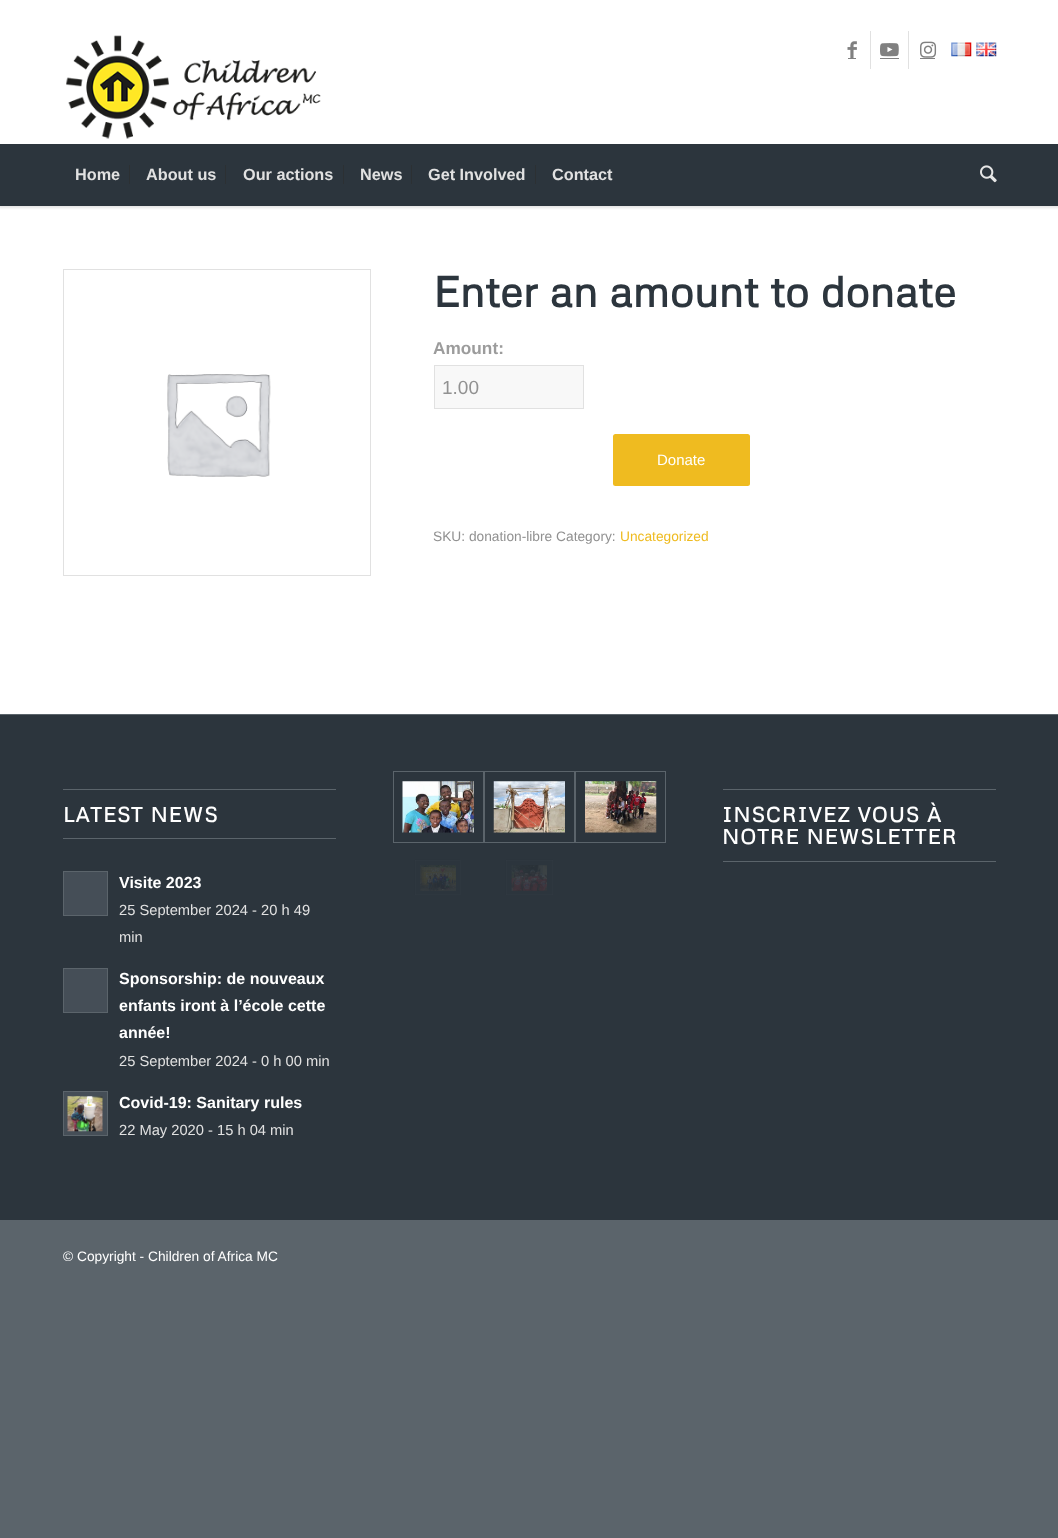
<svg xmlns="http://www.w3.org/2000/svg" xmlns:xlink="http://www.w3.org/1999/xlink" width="1058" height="1538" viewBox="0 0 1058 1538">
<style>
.cls-1{font:bold 16.25px Liberation Sans;fill:#e1e1e1}
.cls-2{font:bold 42.5px Metrophobic;fill:#2c353d}
.cls-3{font:bold 17.25px Liberation Sans;fill:#9c9c9c}
.cls-4{font:19px Liberation Sans;fill:#919191}
.cls-5{font:15px Liberation Sans;fill:#ffffff}
.cls-6{font:13.75px Liberation Sans;fill:#919191}
.cls-7{font:13.75px Liberation Sans;fill:#efbb20}
.cls-8{font:bold 20.6px Metrophobic;letter-spacing:1.25px;fill:#ffffff}
.cls-9{font:bold 16px Liberation Sans;fill:#ffffff}
.cls-10{font:14.7px Liberation Sans;fill:#e1e1e1}
.cls-11{font:13.75px Liberation Sans;fill:#ffffff}
</style>
<rect width="100%" height="100%" fill="#5b646b"/>
<rect fill="#ffffff" x="0" y="206" width="1058" height="508"/>
<rect fill="#000000" fill-opacity="0.1" filter="blur(1px)" x="-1" y="-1" width="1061" height="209"/>
<rect fill="#ffffff" x="0" y="0" width="1058" height="144"/>
<image xlink:href="image0.png" x="66" y="35" width="255" height="104"/>
<rect fill="#e1e1e1" x="870" y="31" width="1" height="38"/>
<image xlink:href="image1.png" x="847" y="41" width="10" height="17"/>
<rect fill="#808080" x="848" y="58" width="8" height="1"/>
<rect fill="#e1e1e1" x="908" y="31" width="1" height="38"/>
<image xlink:href="image2.png" x="880" y="43" width="19" height="14"/>
<rect fill="#808080" x="880" y="58" width="19" height="1"/>
<image xlink:href="image3.png" x="920" y="41" width="17" height="17"/>
<rect fill="#808080" x="920" y="58" width="15" height="1"/>
<image xlink:href="image4.png" x="951" y="42" width="21" height="15"/>
<image xlink:href="image5.png" x="976" y="42" width="21" height="15"/>
<rect fill="#2c353d" x="0" y="144" width="1058" height="62"/>
<rect fill="#2c3033" x="129" y="165" width="1" height="19"/>
<rect fill="#2c3033" x="225" y="165" width="1" height="19"/>
<rect fill="#2c3033" x="343" y="165" width="1" height="19"/>
<rect fill="#2c3033" x="411" y="165" width="1" height="19"/>
<rect fill="#2c3033" x="535" y="165" width="1" height="19"/>
<image xlink:href="image6.png" x="980" y="165" width="17" height="18"/>
<rect fill="none" stroke="#e1e1e1" x="63.5" y="269.5" width="307" height="306"/>
<image xlink:href="image7.png" x="167" y="374" width="104" height="103"/>
<rect fill="#f8f8f8" stroke="#e1e1e1" x="434.5" y="365.5" width="149" height="43"/>
<rect fill="#efbb20" x="613" y="434" width="137" height="52" rx="2.5"/>
<rect fill="#2c353d" x="0" y="715" width="1058" height="505"/>
<rect fill="#5b646b" x="63" y="789" width="273" height="1"/>
<rect fill="#5b646b" x="63" y="838" width="273" height="1"/>
<rect fill="#454e57" stroke="#5b646b" x="63.5" y="871.5" width="44" height="44"/>
<rect fill="#454e57" stroke="#5b646b" x="63.5" y="968.5" width="44" height="44"/>
<rect fill="#454e57" stroke="#5b646b" x="63.5" y="1091.5" width="44" height="44"/>
<image xlink:href="image8.png" x="67" y="1096" width="36" height="36"/>
<rect fill="none" stroke="#5b646b" x="393.5" y="771.5" width="90" height="71"/>
<image xlink:href="image9.png" x="402" y="781" width="72" height="52"/>
<rect fill="none" stroke="#5b646b" x="484.5" y="771.5" width="90" height="71"/>
<image xlink:href="image10.png" x="493" y="781" width="72" height="52"/>
<rect fill="none" stroke="#5b646b" x="575.5" y="771.5" width="90" height="71"/>
<image xlink:href="image11.png" x="585" y="781" width="72" height="52"/>
<rect fill="none" stroke="#313a42" stroke-width="0.6" x="415.3" y="860.3" width="45.4" height="34.4"/>
<image xlink:href="image12.png" x="420" y="865" width="36" height="26"/>
<rect fill="none" stroke="#313a42" stroke-width="0.6" x="506.3" y="860.3" width="46.4" height="34.4"/>
<image xlink:href="image13.png" x="511" y="865" width="36" height="26"/>
<rect fill="#5b646b" x="723" y="789" width="273" height="1"/>
<rect fill="#5b646b" x="723" y="861" width="273" height="1"/>
<text class="cls-1" x="75" y="180">Home</text>
<text class="cls-1" x="146" y="180">About us</text>
<text class="cls-1" x="243" y="180">Our actions</text>
<text class="cls-1" x="360" y="180">News</text>
<text class="cls-1" x="428" y="180">Get Involved</text>
<text class="cls-1" x="552" y="180">Contact</text>
<text class="cls-2" x="433" y="307">Enter an amount to donate</text>
<text class="cls-3" x="433" y="354">Amount:</text>
<text class="cls-4" x="442" y="394">1.00</text>
<text class="cls-5" x="657" y="465">Donate</text>
<text class="cls-6" x="433" y="541">SKU: donation-libre Category:</text>
<text class="cls-7" x="620" y="541">Uncategorized</text>
<text class="cls-8" x="63" y="822">LATEST NEWS</text>
<text class="cls-9" x="119" y="888">Visite 2023</text>
<text class="cls-10"><tspan x="119" y="915">25 September 2024 - 20 h 49</tspan><tspan x="119" y="942">min</tspan></text>
<text class="cls-9"><tspan x="119" y="984">Sponsorship: de nouveaux</tspan><tspan x="119" y="1011">enfants iront à l’école cette</tspan><tspan x="119" y="1038">année!</tspan></text>
<text class="cls-10" x="119" y="1066">25 September 2024 - 0 h 00 min</text>
<text class="cls-9" x="119" y="1108">Covid-19: Sanitary rules</text>
<text class="cls-10" x="119" y="1135">22 May 2020 - 15 h 04 min</text>
<text class="cls-8"><tspan x="722" y="822">INSCRIVEZ VOUS À</tspan><tspan x="722" y="844">NOTRE NEWSLETTER</tspan></text>
<text class="cls-11" x="63" y="1261">© Copyright - Children of Africa MC</text>
</svg>
